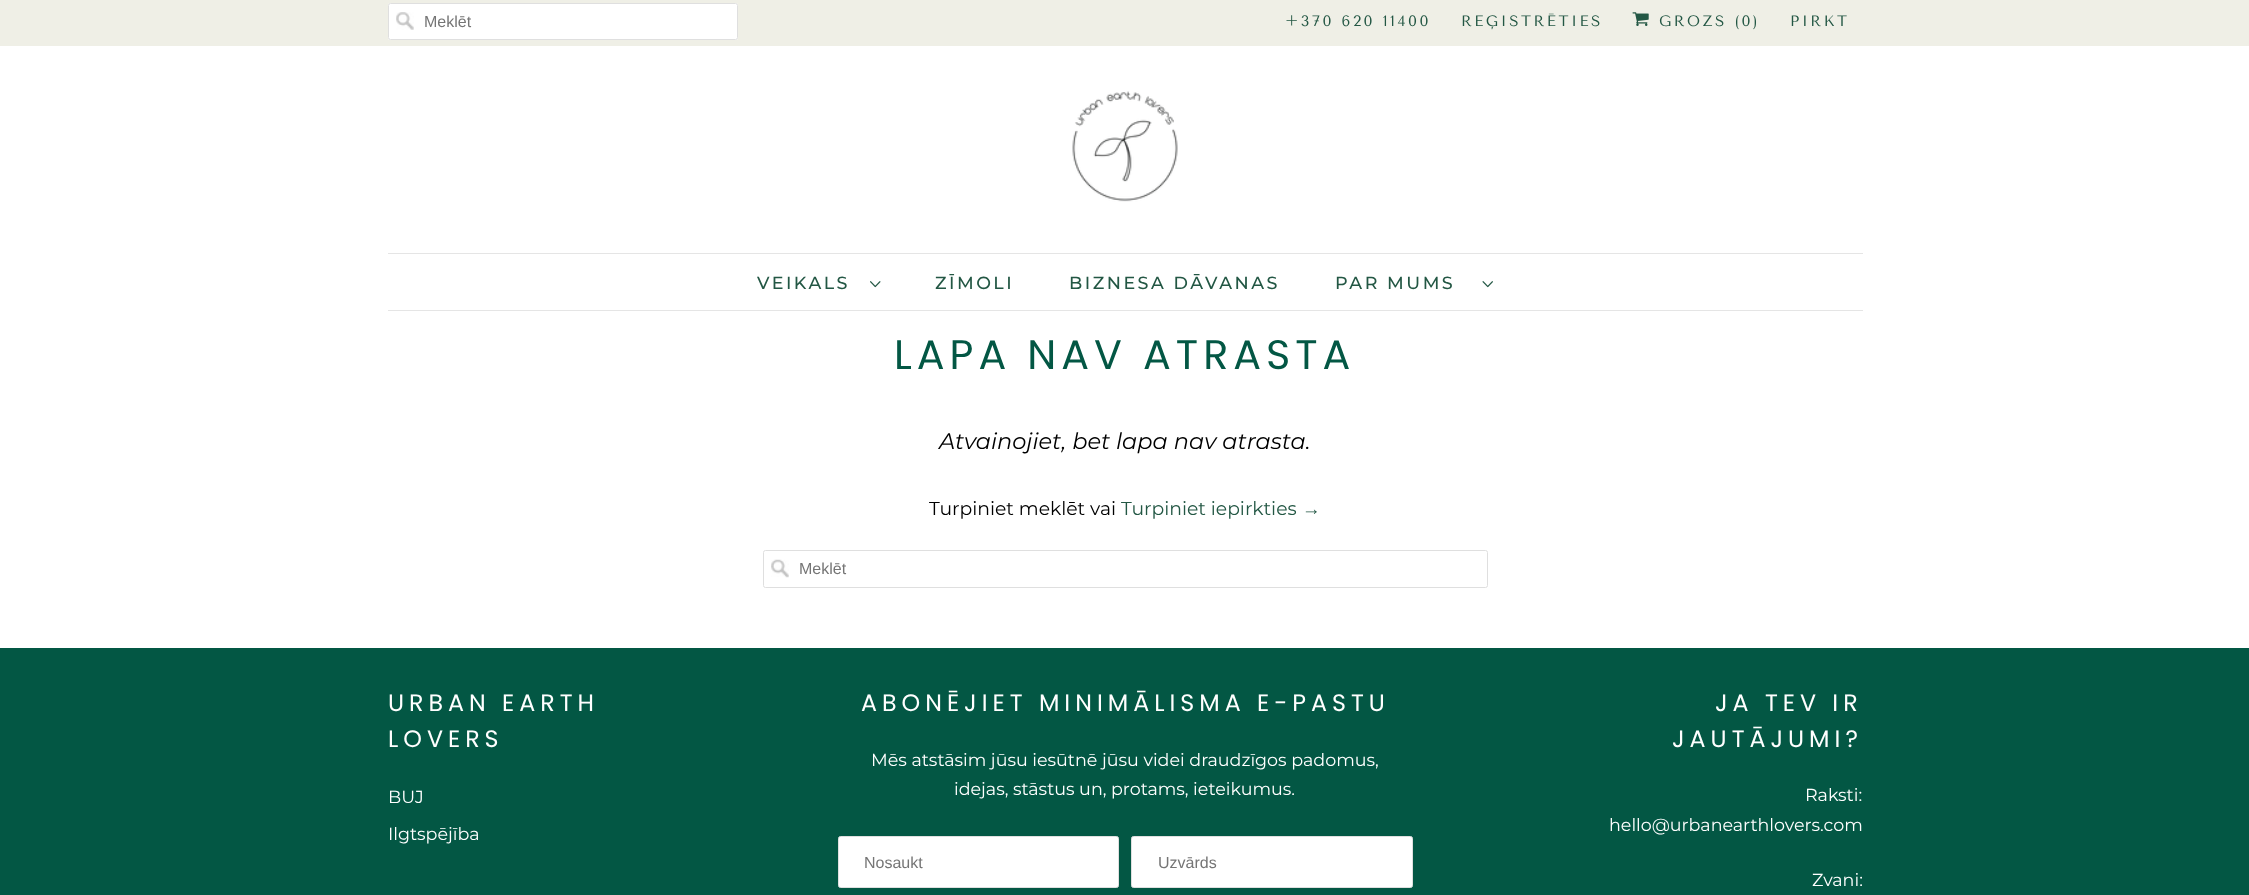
<svg xmlns="http://www.w3.org/2000/svg" xmlns:xlink="http://www.w3.org/1999/xlink" width="2249" height="895" viewBox="0 0 2249 895">
<style>
.cls-1{font:16px Liberation Sans;fill:#757575}
.cls-2{font:15px Tenor Sans;letter-spacing:2.5px;fill:#235744}
.cls-3{font:500 17.5px Montserrat;letter-spacing:2.5px;fill:#235744}
.cls-4{font:41.25px Poppins;letter-spacing:5px;fill:#035744}
.cls-5{font:italic 22.5px Montserrat;fill:#000000}
.cls-6{font:18.75px Montserrat;fill:#000000}
.cls-7{font:18.75px Montserrat;fill:#235744}
.cls-8{font:18.75px Liberation Sans;fill:#235744}
.cls-9{font:23.75px Poppins;letter-spacing:5px;fill:#ffffff}
.cls-10{font:17.5px Montserrat;fill:#ffffff}
</style>
<rect width="100%" height="100%" fill="#ffffff"/>
<rect fill="#efefe6" x="0" y="0" width="2249" height="46"/>
<rect fill="#ffffff" x="388" y="3" width="350" height="37" rx="2.5"/>
<image xlink:href="image0.png" x="396" y="12" width="18" height="18"/>
<rect fill="none" stroke="#dfdfdf" x="388.5" y="3.5" width="349" height="36" rx="2"/>
<image xlink:href="image1.png" x="1632" y="12" width="17" height="14"/>
<image xlink:href="image2.png" x="1072" y="91" width="106" height="111"/>
<rect fill="#e5e5e5" x="388" y="253" width="1475" height="1"/>
<rect fill="#e5e5e5" x="388" y="310" width="1475" height="1"/>
<image xlink:href="image3.png" x="870" y="281" width="11" height="7"/>
<image xlink:href="image4.png" x="1482" y="281" width="11" height="7"/>
<image xlink:href="image5.png" x="771" y="559" width="18" height="19"/>
<rect fill="none" stroke="#dfdfdf" x="763.5" y="550.5" width="724" height="37" rx="2"/>
<rect fill="#035744" x="0" y="648" width="2249" height="247"/>
<rect fill="#ffffff" stroke="#dfdfdf" x="838.5" y="836.5" width="280" height="51" rx="2"/>
<rect fill="#ffffff" stroke="#dfdfdf" x="1131.5" y="836.5" width="281" height="51" rx="2"/>
<text class="cls-1" x="424" y="27">Meklēt</text>
<text class="cls-2" x="1285" y="26">+370 620 11400</text>
<text class="cls-2" x="1461" y="26">REĢISTRĒTIES</text>
<text class="cls-2" x="1659" y="26">GROZS (0)</text>
<text class="cls-2" x="1790" y="26">PIRKT</text>
<text class="cls-3" x="757" y="289">VEIKALS</text>
<text class="cls-3" x="935" y="289">ZĪMOLI</text>
<text class="cls-3" x="1069" y="289">BIZNESA DĀVANAS</text>
<text class="cls-3" x="1335" y="289">PAR MUMS</text>
<text class="cls-4" x="894" y="369">LAPA NAV ATRASTA</text>
<text class="cls-5" x="939" y="449">Atvainojiet, bet lapa nav atrasta.</text>
<text class="cls-6" x="929" y="515">Turpiniet meklēt vai</text>
<text class="cls-7" x="1121" y="515">Turpiniet iepirkties</text>
<text class="cls-8" x="1302" y="515">→</text>
<text class="cls-1" x="799" y="574">Meklēt</text>
<text class="cls-9"><tspan x="388" y="711">URBAN EARTH</tspan><tspan x="388" y="747">LOVERS</tspan></text>
<text class="cls-10" x="388" y="803">BUJ</text>
<text class="cls-10" x="388" y="840">Ilgtspējība</text>
<text class="cls-9" x="861" y="711">ABONĒJIET MINIMĀLISMA E-PASTU</text>
<text class="cls-10" x="871" y="766">Mēs atstāsim jūsu iesūtnē jūsu videi draudzīgos padomus,</text>
<text class="cls-10" x="954" y="795">idejas, stāstus un, protams, ieteikumus.</text>
<text class="cls-1" x="864" y="868">Nosaukt</text>
<text class="cls-1" x="1158" y="868">Uzvārds</text>
<text class="cls-9" x="1715" y="711">JA TEV IR</text>
<text class="cls-9" x="1672" y="747">JAUTĀJUMI?</text>
<text class="cls-10" x="1805" y="801">Raksti:</text>
<text class="cls-10" x="1609" y="831">hello@urbanearthlovers.com</text>
<text class="cls-10" x="1812" y="886">Zvani:</text>
</svg>
